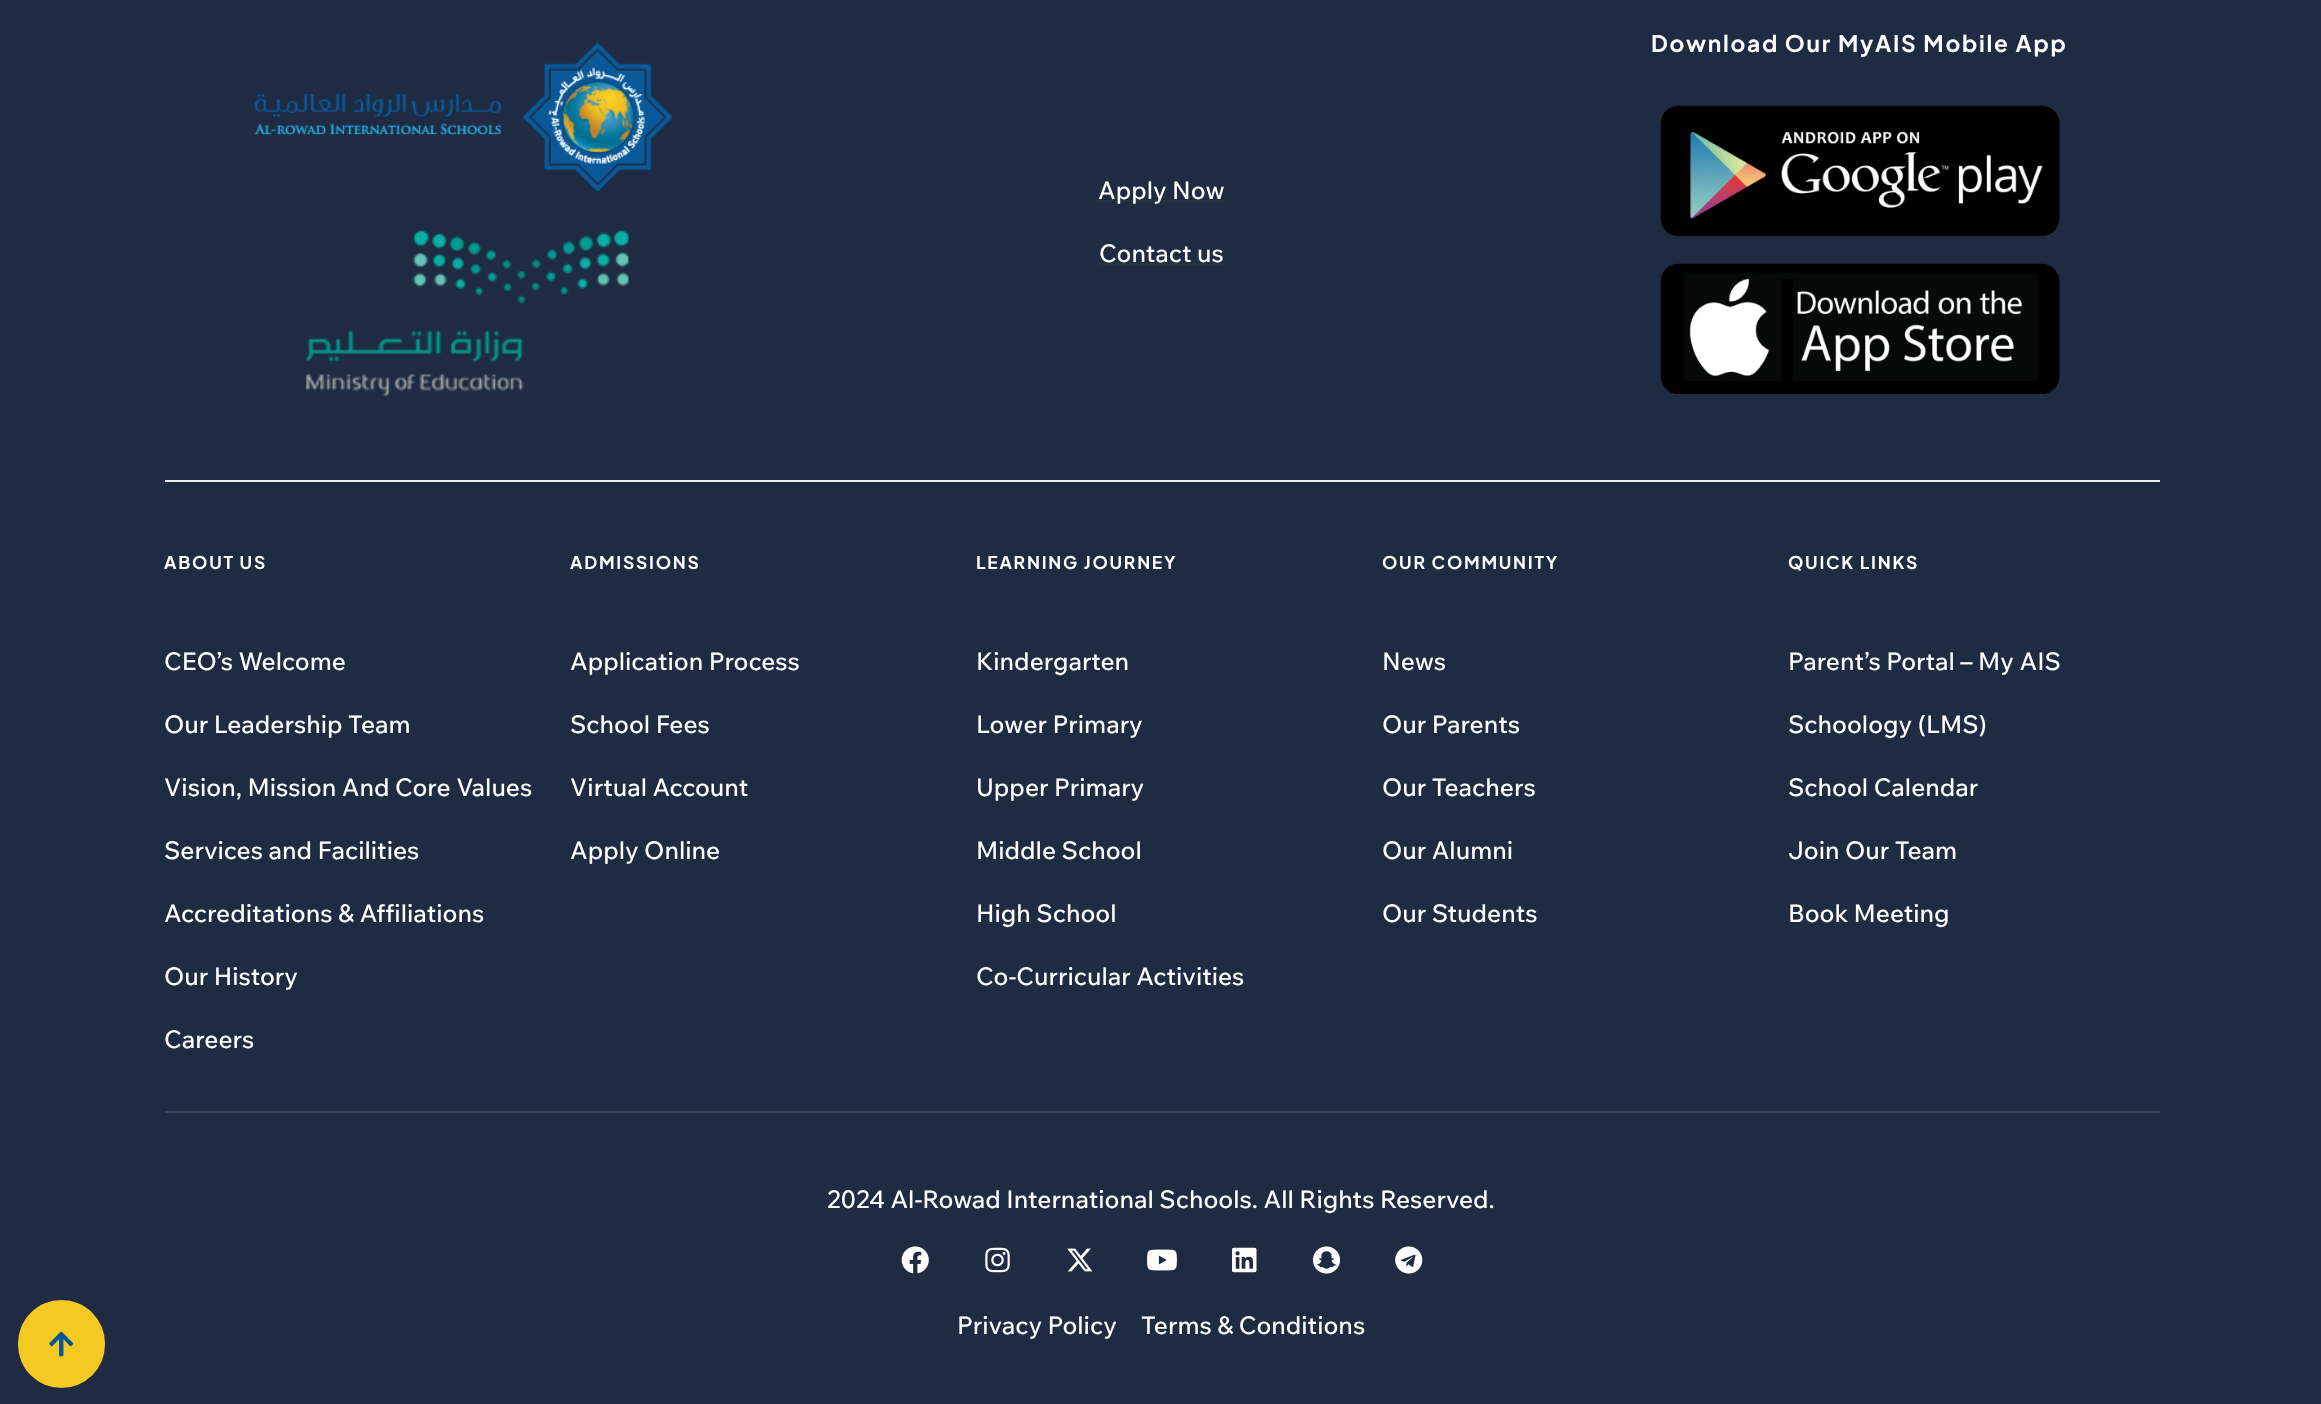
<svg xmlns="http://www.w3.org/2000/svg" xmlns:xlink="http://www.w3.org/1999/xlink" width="2321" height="1404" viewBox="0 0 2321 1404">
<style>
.cls-1{font:500 24.5px Wix Madefor Text;fill:#ffffff}
.cls-2{font:bold 22.75px Plus Jakarta Sans;letter-spacing:1.75px;fill:#ffffff}
.cls-3{font:bold 17.5px Plus Jakarta Sans;letter-spacing:1.75px;fill:#ffffff}
</style>
<rect width="100%" height="100%" fill="#1e2b42"/>
<rect fill="#f6c822" x="18" y="1300" width="87" height="88" rx="43.5"/>
<image xlink:href="image0.png" x="49" y="1331" width="25" height="26"/>
<image xlink:href="image1.png" x="253" y="42" width="419" height="149"/>
<image xlink:href="image2.png" x="305" y="230" width="324" height="166"/>
<rect fill="#22353d" x="1097" y="200" width="128" height="2"/>
<rect fill="#22353d" x="1099" y="263" width="124" height="2"/>
<image xlink:href="image3.png" x="1660" y="105" width="400" height="132"/>
<image xlink:href="image4.png" x="1660" y="263" width="400" height="132"/>
<rect fill="#ededed" x="165" y="480" width="1995" height="2"/>
<rect fill="#394459" x="165" y="1111" width="1995" height="2"/>
<image xlink:href="image5.png" x="901" y="1246" width="28" height="28"/>
<image xlink:href="image6.png" x="985" y="1247" width="25" height="26"/>
<image xlink:href="image7.png" x="1067" y="1248" width="26" height="24"/>
<image xlink:href="image8.png" x="1147" y="1249" width="30" height="22"/>
<image xlink:href="image9.png" x="1232" y="1247" width="25" height="26"/>
<image xlink:href="image10.png" x="1312" y="1246" width="29" height="28"/>
<image xlink:href="image11.png" x="1395" y="1246" width="28" height="28"/>
<text class="cls-1" x="1098" y="199">Apply Now</text>
<text class="cls-1" x="1099" y="262">Contact us</text>
<text class="cls-2" x="1651" y="52">Download Our MyAIS Mobile App</text>
<text class="cls-3" x="164" y="569">ABOUT US</text>
<text class="cls-1" x="164" y="670">CEO’s Welcome</text>
<text class="cls-1" x="164" y="733">Our Leadership Team</text>
<text class="cls-1" x="164" y="796">Vision, Mission And Core Values</text>
<text class="cls-1" x="164" y="859">Services and Facilities</text>
<text class="cls-1" x="164" y="922">Accreditations &amp; Affiliations</text>
<text class="cls-1" x="164" y="985">Our History</text>
<text class="cls-1" x="164" y="1048">Careers</text>
<text class="cls-3" x="570" y="569">ADMISSIONS</text>
<text class="cls-1" x="570" y="670">Application Process</text>
<text class="cls-1" x="570" y="733">School Fees</text>
<text class="cls-1" x="570" y="796">Virtual Account</text>
<text class="cls-1" x="570" y="859">Apply Online</text>
<text class="cls-3" x="976" y="569">LEARNING JOURNEY</text>
<text class="cls-1" x="976" y="670">Kindergarten</text>
<text class="cls-1" x="976" y="733">Lower Primary</text>
<text class="cls-1" x="976" y="796">Upper Primary</text>
<text class="cls-1" x="976" y="859">Middle School</text>
<text class="cls-1" x="976" y="922">High School</text>
<text class="cls-1" x="976" y="985">Co-Curricular Activities</text>
<text class="cls-3" x="1382" y="569">OUR COMMUNITY</text>
<text class="cls-1" x="1382" y="670">News</text>
<text class="cls-1" x="1382" y="733">Our Parents</text>
<text class="cls-1" x="1382" y="796">Our Teachers</text>
<text class="cls-1" x="1382" y="859">Our Alumni</text>
<text class="cls-1" x="1382" y="922">Our Students</text>
<text class="cls-3" x="1788" y="569">QUICK LINKS</text>
<text class="cls-1" x="1788" y="670">Parent’s Portal – My AIS</text>
<text class="cls-1" x="1788" y="733">Schoology (LMS)</text>
<text class="cls-1" x="1788" y="796">School Calendar</text>
<text class="cls-1" x="1788" y="859">Join Our Team</text>
<text class="cls-1" x="1788" y="922">Book Meeting</text>
<text class="cls-1" x="827" y="1208">2024 Al-Rowad International Schools. All Rights Reserved.</text>
<text class="cls-1" x="957" y="1334">Privacy Policy</text>
<text class="cls-1" x="1141" y="1334">Terms &amp; Conditions</text>
</svg>
